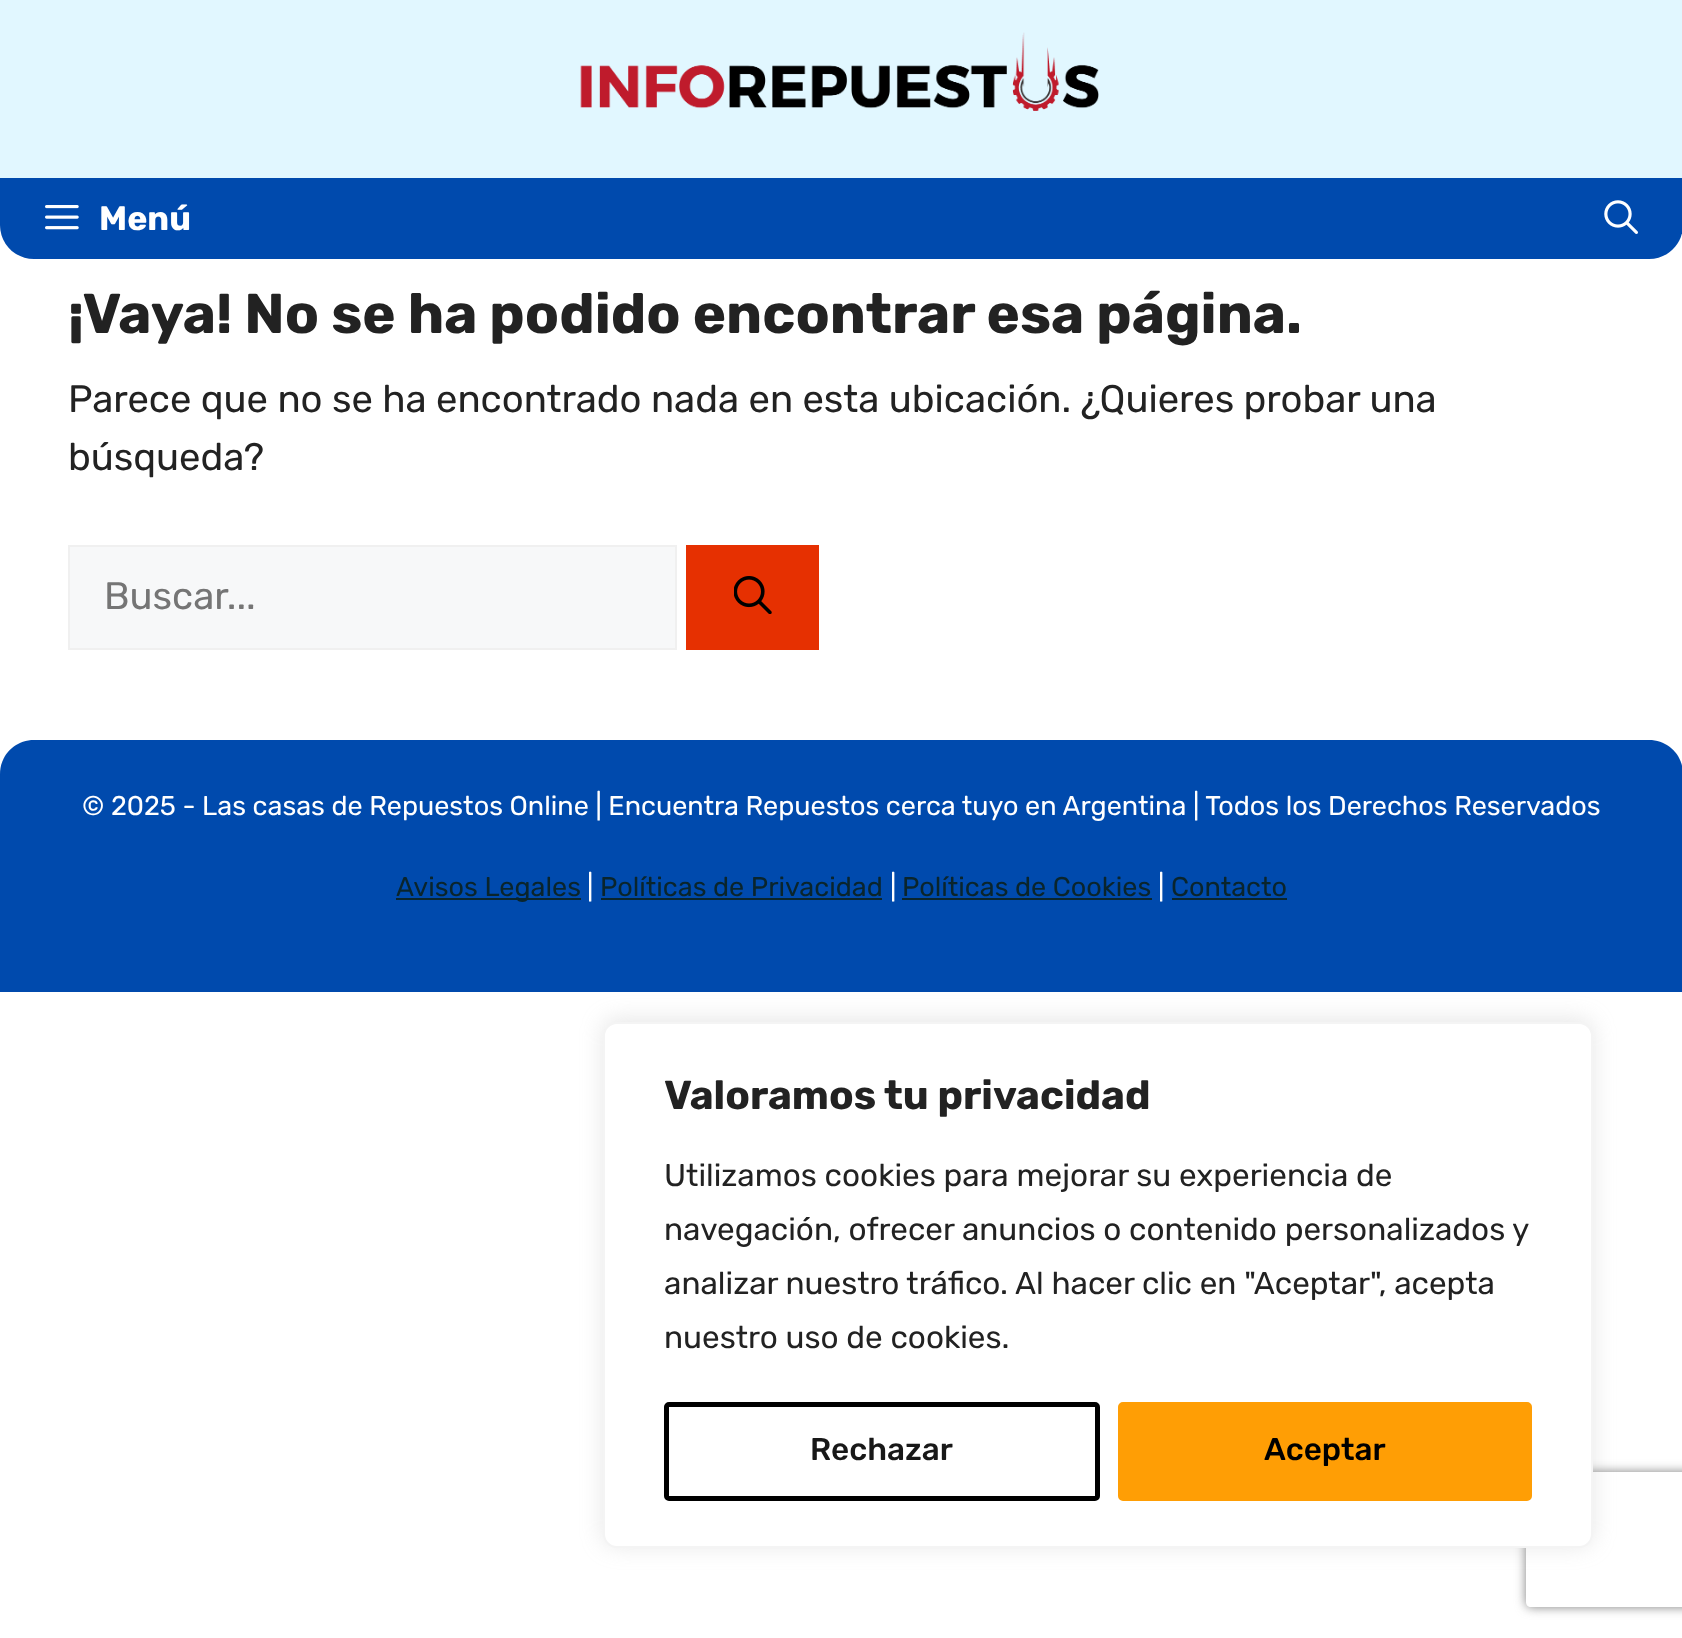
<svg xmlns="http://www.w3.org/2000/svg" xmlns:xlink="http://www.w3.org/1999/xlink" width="1682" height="1638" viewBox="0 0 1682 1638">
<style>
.cls-1{font:bold 34px Rubik;fill:#ffffff}
.cls-2{font:bold 56.25px Rubik;fill:#222222}
.cls-3{font:38.25px Rubik;fill:#222222}
.cls-4{font:38.25px Rubik;fill:#757575}
.cls-5{font:27px Rubik;fill:#ffffff}
.cls-6{font:27px Rubik;fill:#0a252c}
.cls-7{font:bold 40.5px Rubik;fill:#222222}
.cls-8{font:31.5px Rubik;fill:#222222}
.cls-9{font:500 31.5px Rubik;fill:#181818}
.cls-10{font:500 31.5px Rubik;fill:#000000}
</style>
<defs>
<clipPath id="clip1"><path d="M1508 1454H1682V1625H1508ZM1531 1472H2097C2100 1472 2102 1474 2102 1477V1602C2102 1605 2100 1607 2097 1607H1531C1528 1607 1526 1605 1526 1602V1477C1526 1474 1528 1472 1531 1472Z" clip-rule="evenodd"/></clipPath>
</defs>
<rect width="100%" height="100%" fill="#ffffff"/>
<rect fill="#e1f7ff" x="0" y="0" width="1682" height="178"/>
<image xlink:href="image0.png" x="580" y="32" width="519" height="79"/>
<path fill="#004aad" d="M0 178H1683V225C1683 244 1668 259 1649 259H34C15 259 0 244 0 225Z"/>
<image xlink:href="image1.png" x="45" y="205" width="34" height="25"/>
<image xlink:href="image2.png" x="1604" y="200" width="34" height="34"/>
<rect fill="#f7f8f9" stroke="#f0f0f0" stroke-width="2" x="69" y="546" width="607" height="103"/>
<rect fill="#e63001" x="686" y="545" width="133" height="105"/>
<image xlink:href="image3.png" x="734" y="576" width="38" height="38"/>
<path fill="#004aad" d="M34 740H1649C1668 740 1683 755 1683 774V992H0V774C0 755 15 740 34 740Z"/>
<rect fill="#0a252c" x="396" y="898" width="185" height="2"/>
<rect fill="#0a252c" x="601" y="898" width="281" height="2"/>
<rect fill="#0a252c" x="902" y="898" width="250" height="2"/>
<rect fill="#0a252c" x="1172" y="898" width="115" height="2"/>
<rect fill="#acabab" fill-opacity="0.3" filter="blur(11px)" x="603" y="1019" width="990" height="527" rx="14"/>
<g clip-path="url(#clip1)">
<rect fill="#808080" filter="blur(5.5px)" x="1526" y="1472" width="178" height="135" rx="5"/>
</g>
<rect fill="#ffffff" stroke="#f4f4f4" stroke-width="2" x="604" y="1023" width="988" height="524" rx="13"/>
<rect fill="none" stroke="#000000" stroke-width="5" x="666.5" y="1404.5" width="431" height="94" rx="2.5"/>
<rect fill="#ff9e05" stroke="#ff9e05" stroke-width="5" x="1120.5" y="1404.5" width="409" height="94" rx="2.5"/>
<text class="cls-1" x="99" y="230">Menú</text>
<text class="cls-2" x="68" y="333">¡Vaya! No se ha podido encontrar esa página.</text>
<text class="cls-3"><tspan x="68" y="412">Parece que no se ha encontrado nada en esta ubicación. ¿Quieres probar una</tspan><tspan x="68" y="470">búsqueda?</tspan></text>
<text class="cls-4" x="104" y="609">Buscar...</text>
<text class="cls-5" x="82" y="815">© 2025 - Las casas de Repuestos Online | Encuentra Repuestos cerca tuyo en Argentina | Todos los Derechos Reservados</text>
<text class="cls-6" x="396" y="896">Avisos Legales</text>
<text class="cls-5" x="587" y="896">|</text>
<text class="cls-6" x="600" y="896">Políticas de Privacidad</text>
<text class="cls-5" x="890" y="896">|</text>
<text class="cls-6" x="902" y="896">Políticas de Cookies</text>
<text class="cls-5" x="1158" y="896">|</text>
<text class="cls-6" x="1171" y="896">Contacto</text>
<text class="cls-7" x="664" y="1109">Valoramos tu privacidad</text>
<text class="cls-8"><tspan x="664" y="1186">Utilizamos cookies para mejorar su experiencia de</tspan><tspan x="664" y="1240">navegación, ofrecer anuncios o contenido personalizados y</tspan><tspan x="664" y="1294">analizar nuestro tráfico. Al hacer clic en "Aceptar", acepta</tspan><tspan x="664" y="1348">nuestro uso de cookies.</tspan></text>
<text class="cls-9" x="810" y="1460">Rechazar</text>
<text class="cls-10" x="1264" y="1460">Aceptar</text>
</svg>
